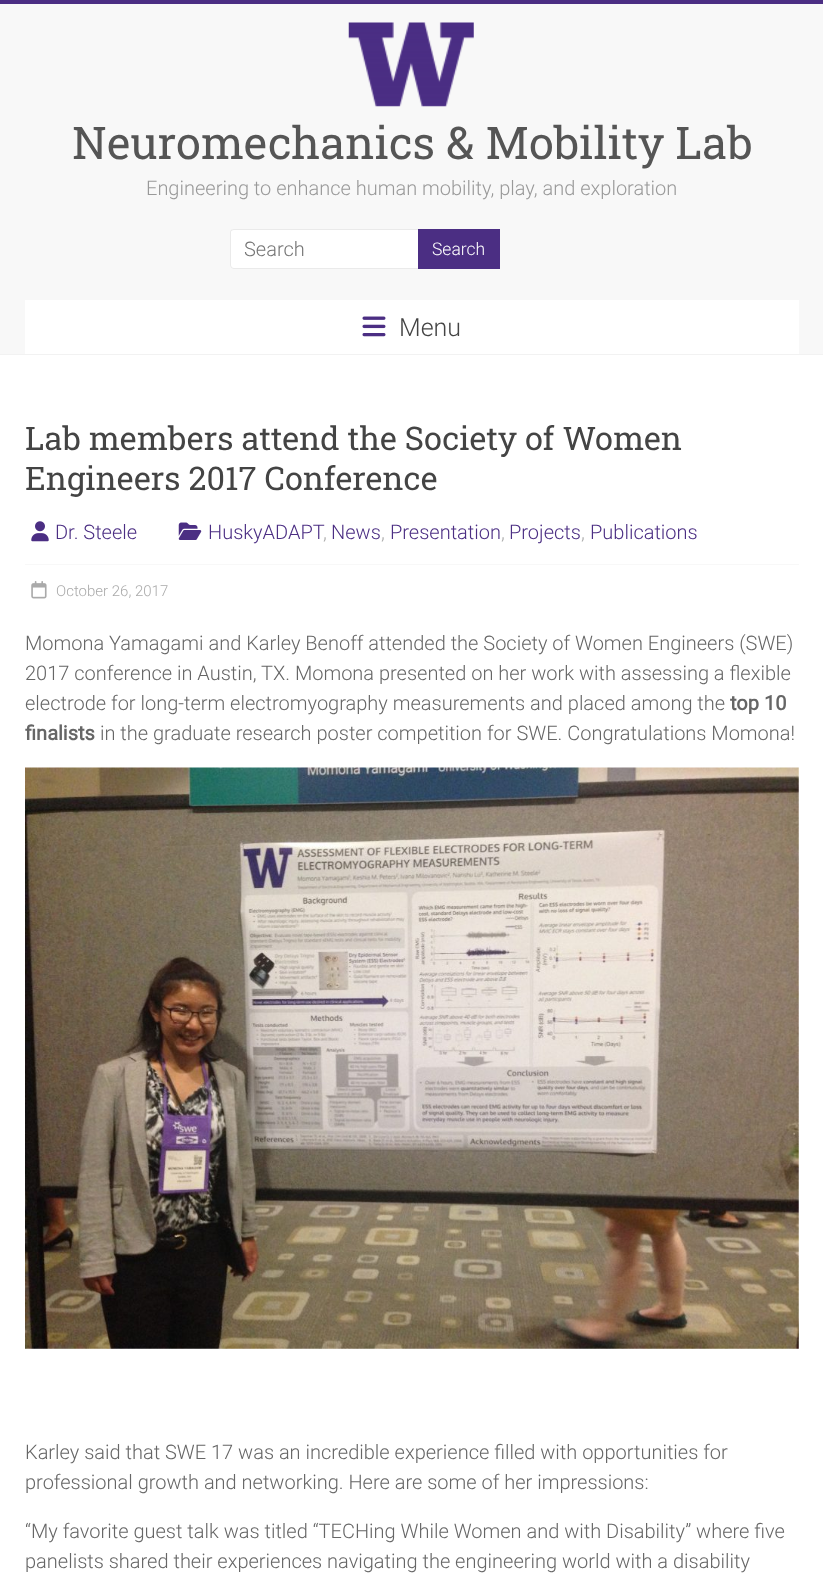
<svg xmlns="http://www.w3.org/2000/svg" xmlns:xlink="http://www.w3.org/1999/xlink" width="823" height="1589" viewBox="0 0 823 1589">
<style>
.cls-1{font:45px Roboto Slab;fill:#555555}
.cls-2{font:300 20px Roboto;fill:#999999}
.cls-3{font:300 20px Roboto;fill:#757575}
.cls-4{font:300 17.5px Roboto;fill:#ffffff}
.cls-5{font:300 25px Roboto;fill:#444444}
.cls-6{font:32.5px Roboto Slab;fill:#444444}
.cls-7{font:300 20px Roboto;fill:#4b2e83}
.cls-8{font:300 20px Roboto;fill:#aaaaaa}
.cls-9{font:300 15px Roboto;fill:#aaaaaa}
.cls-10{font:300 20px Roboto;fill:#666666}
.cls-11{font:bold 20px Roboto;fill:#666666}
</style>
<rect width="100%" height="100%" fill="#ffffff"/>
<rect fill="#4b2e83" x="0" y="0" width="823" height="4"/>
<rect fill="#f8f8f8" x="0" y="4" width="823" height="350"/>
<rect fill="#f2f2f2" x="0" y="354" width="823" height="1"/>
<image xlink:href="image0.png" x="348" y="22" width="126" height="85"/>
<path fill="#ffffff" d="M234 229H418V269H234C232 269 230 267 230 265V233C230 231 232 229 234 229Z"/>
<path fill="#eaeaea" fill-rule="evenodd" d="M234 229H418V269H234C232 269 230 267 230 265V232C230 230 232 229 234 229ZM234 230H418V268H234C232 268 231 266 231 265V232C231 231 232 230 234 230Z"/>
<rect fill="#4b2e83" x="418" y="229" width="82" height="40"/>
<rect fill="#ffffff" x="25" y="300" width="774" height="54"/>
<image xlink:href="image1.png" x="362" y="316" width="24" height="21"/>
<image xlink:href="image2.png" x="31" y="521" width="18" height="21"/>
<image xlink:href="image3.png" x="178" y="522" width="24" height="18"/>
<rect fill="#f8f8f8" x="25" y="564" width="774" height="1"/>
<image xlink:href="image4.png" x="31" y="581" width="16" height="18"/>
<image xlink:href="image5.png" x="25" y="767" width="774" height="582"/>
<text class="cls-1" x="72" y="159">Neuromechanics &amp; Mobility Lab</text>
<text class="cls-2" x="146" y="195">Engineering to enhance human mobility, play, and exploration</text>
<text class="cls-3" x="244" y="256">Search</text>
<text class="cls-4" x="432" y="255">Search</text>
<text class="cls-5" x="399" y="336">Menu</text>
<text class="cls-6"><tspan x="25" y="450">Lab members attend the Society of Women</tspan><tspan x="25" y="490">Engineers 2017 Conference</tspan></text>
<text class="cls-7" x="55" y="539">Dr. Steele</text>
<text class="cls-7" x="208" y="539">HuskyADAPT</text>
<text class="cls-7" x="331" y="539">News</text>
<text class="cls-7" x="390" y="539">Presentation</text>
<text class="cls-7" x="509" y="539">Projects</text>
<text class="cls-7" x="590" y="539">Publications</text>
<text class="cls-8" x="323" y="539">,</text>
<text class="cls-8" x="381" y="539">,</text>
<text class="cls-8" x="501" y="539">,</text>
<text class="cls-8" x="581" y="539">,</text>
<text class="cls-9" x="56" y="596">October 26, 2017</text>
<text class="cls-10"><tspan x="25" y="650">Momona Yamagami and Karley Benoff attended the Society of Women Engineers (SWE)</tspan><tspan x="25" y="680">2017 conference in Austin, TX. Momona presented on her work with assessing a flexible</tspan><tspan x="25" y="710">electrode for long-term electromyography measurements and placed among the</tspan></text>
<text class="cls-11" x="730" y="710">top 10</text>
<text class="cls-11" x="25" y="740">finalists</text>
<text class="cls-10" x="100" y="740">in the graduate research poster competition for SWE. Congratulations Momona!</text>
<text class="cls-10"><tspan x="25" y="1459">Karley said that SWE 17 was an incredible experience filled with opportunities for</tspan><tspan x="25" y="1489">professional growth and networking. Here are some of her impressions:</tspan></text>
<text class="cls-10"><tspan x="25" y="1538">“My favorite guest talk was titled “TECHing While Women and with Disability” where five</tspan><tspan x="25" y="1568">panelists shared their experiences navigating the engineering world with a disability</tspan></text>
</svg>
